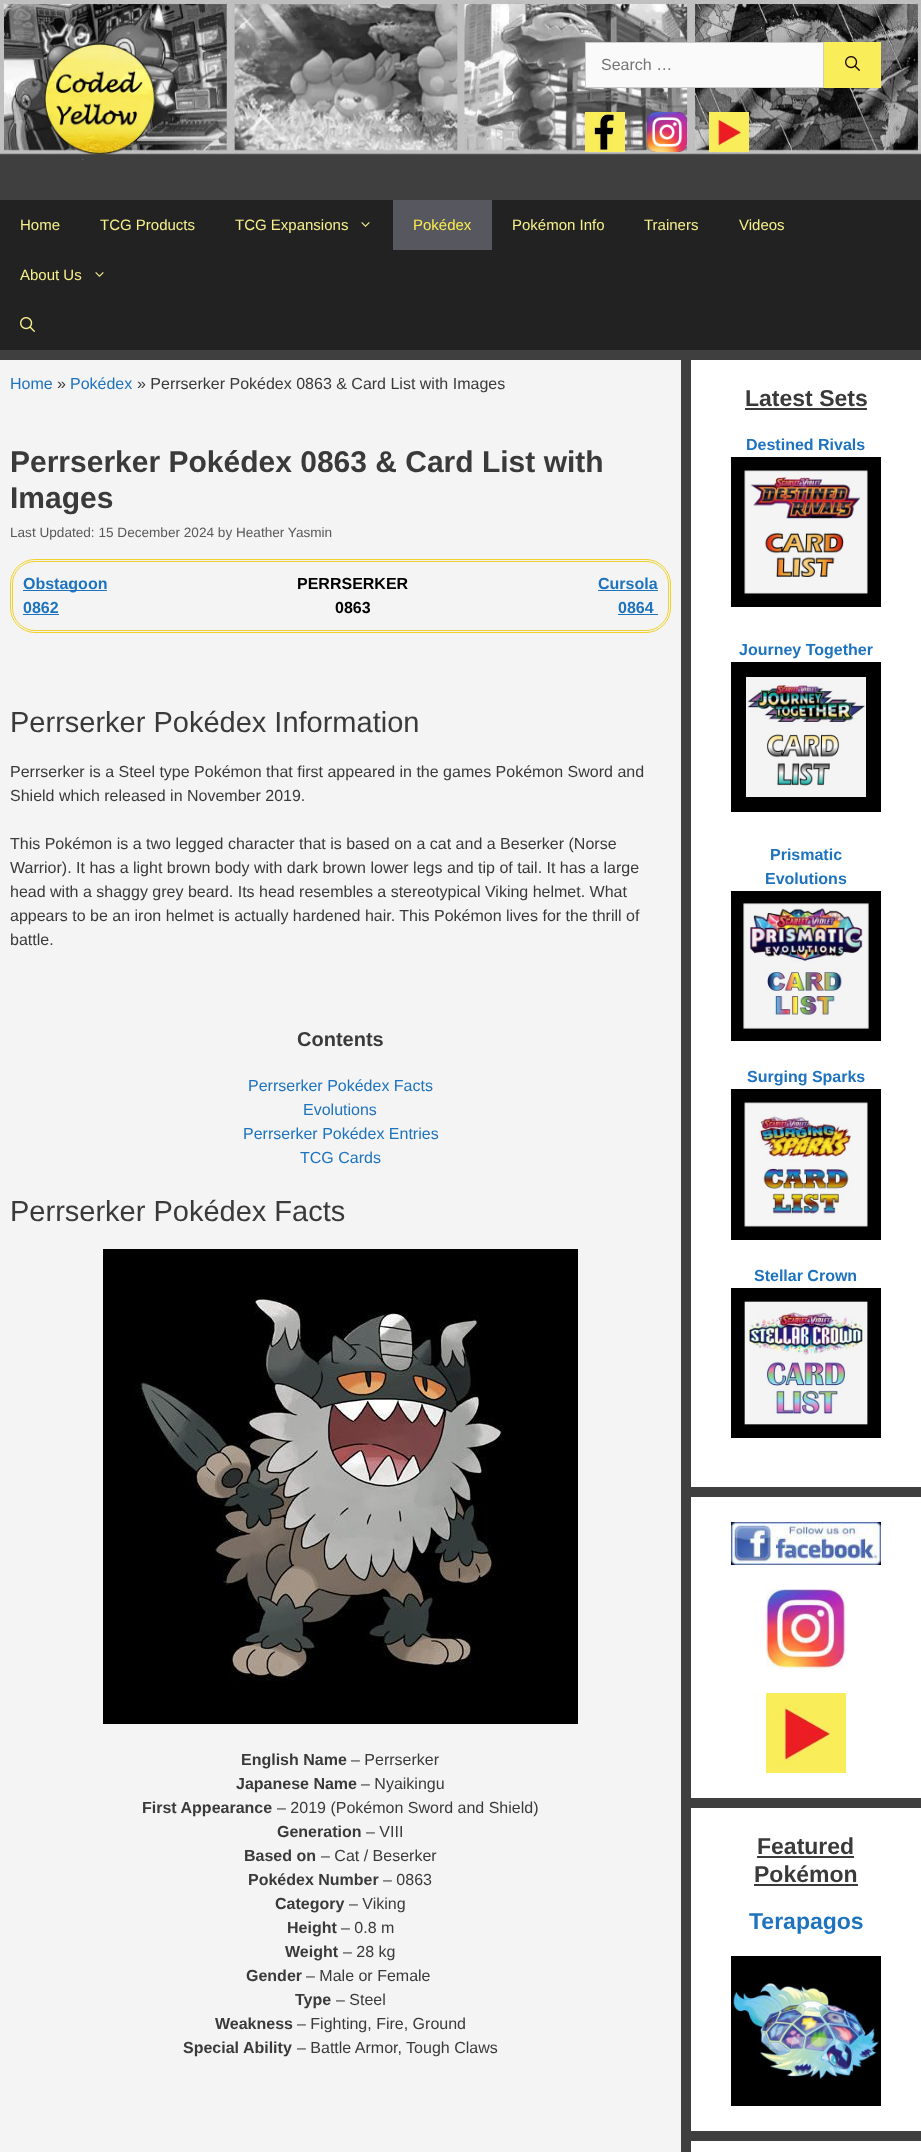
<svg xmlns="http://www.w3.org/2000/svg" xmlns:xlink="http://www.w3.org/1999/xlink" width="921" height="2152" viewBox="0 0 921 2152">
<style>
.cls-1{font:16px Liberation Sans;fill:#757575}
.cls-2{font:15px Liberation Sans;fill:#f7f08c}
.cls-3{font:15px Liberation Sans;fill:#faec4f}
.cls-4{font:16px Liberation Sans;fill:#1e73be}
.cls-5{font:16px Liberation Sans;fill:#3a3a3a}
.cls-6{font:bold 30px Liberation Sans;fill:#3a3a3a}
.cls-7{font:13.6px Liberation Sans;fill:#595959}
.cls-8{font:bold 16px Liberation Sans;fill:#1e73be}
.cls-9{font:bold 16px Liberation Sans;fill:#000000}
.cls-10{font:29px Liberation Sans;fill:#3a3a3a}
.cls-11{font:bold 20px Liberation Sans;fill:#3a3a3a}
.cls-12{font:bold 16px Liberation Sans;fill:#3a3a3a}
.cls-13{font:bold 23px Liberation Sans;fill:#3a3a3a}
.cls-14{font:bold 23px Liberation Sans;fill:#1e73be}
</style>
<rect width="100%" height="100%" fill="#3f3f3f"/>
<image xlink:href="image0.png" x="0" y="0" width="921" height="155"/>
<image xlink:href="image1.png" x="40" y="40" width="116" height="120"/>
<rect fill="#fafafa" stroke="#cccccc" x="585.5" y="42.5" width="238" height="45"/>
<rect fill="#faed5a" x="824" y="42" width="57" height="46"/>
<image xlink:href="image2.png" x="845" y="56" width="15" height="15"/>
<image xlink:href="image3.png" x="585" y="112" width="40" height="40"/>
<image xlink:href="image4.png" x="647" y="112" width="40" height="40"/>
<image xlink:href="image5.png" x="709" y="112" width="40" height="40"/>
<rect fill="#222222" x="0" y="200" width="921" height="150"/>
<image xlink:href="image6.png" x="361" y="222" width="9" height="5"/>
<rect fill="#575760" x="393" y="200" width="99" height="50"/>
<image xlink:href="image6.png" x="95" y="272" width="9" height="5"/>
<image xlink:href="image7.png" x="20" y="317" width="15" height="15"/>
<rect fill="#f4f4f4" x="0" y="360" width="681" height="1792"/>
<rect fill="none" stroke="#efd229" x="10.5" y="559.5" width="660" height="73" rx="24.5"/>
<rect fill="none" stroke="#efd229" x="12.5" y="561.5" width="656" height="69" rx="22.5"/>
<rect fill="#1e73be" x="23" y="590" width="84" height="1"/>
<rect fill="#1e73be" x="23" y="614" width="36" height="1"/>
<rect fill="#1e73be" x="598" y="590" width="60" height="1"/>
<rect fill="#1e73be" x="618" y="614" width="40" height="1"/>
<image xlink:href="image8.png" x="103" y="1249" width="475" height="475"/>
<rect fill="#ffffff" x="691" y="360" width="230" height="1127"/>
<rect fill="#3a3a3a" x="745" y="408" width="122" height="2"/>
<image xlink:href="image9.png" x="731" y="457" width="150" height="150"/>
<image xlink:href="image10.png" x="731" y="662" width="150" height="150"/>
<image xlink:href="image11.png" x="731" y="891" width="150" height="150"/>
<image xlink:href="image12.png" x="731" y="1089" width="150" height="151"/>
<image xlink:href="image13.png" x="731" y="1288" width="150" height="150"/>
<rect fill="#ffffff" x="691" y="1497" width="230" height="301"/>
<image xlink:href="image14.png" x="731" y="1522" width="150" height="43"/>
<image xlink:href="image15.png" x="766" y="1589" width="80" height="80"/>
<image xlink:href="image16.png" x="766" y="1693" width="80" height="80"/>
<rect fill="#ffffff" x="691" y="1808" width="230" height="323"/>
<rect fill="#3a3a3a" x="757" y="1856" width="97" height="2"/>
<rect fill="#3a3a3a" x="754" y="1884" width="104" height="2"/>
<image xlink:href="image17.png" x="731" y="1956" width="150" height="150"/>
<rect fill="#ffffff" x="691" y="2141" width="230" height="11"/>
<text class="cls-1" x="601" y="70">Search …</text>
<text class="cls-2" x="20" y="230">Home</text>
<text class="cls-2" x="100" y="230">TCG Products</text>
<text class="cls-2" x="235" y="230">TCG Expansions</text>
<text class="cls-3" x="413" y="230">Pokédex</text>
<text class="cls-2" x="512" y="230">Pokémon Info</text>
<text class="cls-2" x="644" y="230">Trainers</text>
<text class="cls-2" x="739" y="230">Videos</text>
<text class="cls-2" x="20" y="280">About Us</text>
<text class="cls-4" x="10" y="389">Home</text>
<text class="cls-5" x="57" y="389">»</text>
<text class="cls-4" x="70" y="389">Pokédex</text>
<text class="cls-5" x="137" y="389">» Perrserker Pokédex 0863 &amp; Card List with Images</text>
<text class="cls-6"><tspan x="10" y="472">Perrserker Pokédex 0863 &amp; Card List with</tspan><tspan x="10" y="508">Images</tspan></text>
<text class="cls-7" x="10" y="537">Last Updated: 15 December 2024 by Heather Yasmin</text>
<text class="cls-8"><tspan x="23" y="589">Obstagoon</tspan><tspan x="23" y="613">0862</tspan></text>
<text class="cls-9" x="297" y="589">PERRSERKER</text>
<text class="cls-9" x="335" y="613">0863</text>
<text class="cls-8" x="598" y="589">Cursola</text>
<text class="cls-8" x="618" y="613">0864</text>
<text class="cls-10" x="10" y="732">Perrserker Pokédex Information</text>
<text class="cls-5"><tspan x="10" y="777">Perrserker is a Steel type Pokémon that first appeared in the games Pokémon Sword and</tspan><tspan x="10" y="801">Shield which released in November 2019.</tspan></text>
<text class="cls-5"><tspan x="10" y="849">This Pokémon is a two legged character that is based on a cat and a Beserker (Norse</tspan><tspan x="10" y="873">Warrior). It has a light brown body with dark brown lower legs and tip of tail. It has a large</tspan><tspan x="10" y="897">head with a shaggy grey beard. Its head resembles a stereotypical Viking helmet. What</tspan><tspan x="10" y="921">appears to be an iron helmet is actually hardened hair. This Pokémon lives for the thrill of</tspan><tspan x="10" y="945">battle.</tspan></text>
<text class="cls-11" x="297" y="1046">Contents</text>
<text class="cls-4" x="248" y="1091">Perrserker Pokédex Facts</text>
<text class="cls-4" x="303" y="1115">Evolutions</text>
<text class="cls-4" x="243" y="1139">Perrserker Pokédex Entries</text>
<text class="cls-4" x="300" y="1163">TCG Cards</text>
<text class="cls-10" x="10" y="1221">Perrserker Pokédex Facts</text>
<text class="cls-12" x="241" y="1765">English Name</text>
<text class="cls-5" x="351" y="1765">– Perrserker</text>
<text class="cls-12" x="236" y="1789">Japanese Name</text>
<text class="cls-5" x="361" y="1789">– Nyaikingu</text>
<text class="cls-12" x="142" y="1813">First Appearance</text>
<text class="cls-5" x="277" y="1813">– 2019 (Pokémon Sword and Shield)</text>
<text class="cls-12" x="277" y="1837">Generation</text>
<text class="cls-5" x="366" y="1837">– VIII</text>
<text class="cls-12" x="244" y="1861">Based on</text>
<text class="cls-5" x="321" y="1861">– Cat / Beserker</text>
<text class="cls-12" x="248" y="1885">Pokédex Number</text>
<text class="cls-5" x="383" y="1885">– 0863</text>
<text class="cls-12" x="275" y="1909">Category</text>
<text class="cls-5" x="349" y="1909">– Viking</text>
<text class="cls-12" x="287" y="1933">Height</text>
<text class="cls-5" x="341" y="1933">– 0.8 m</text>
<text class="cls-12" x="285" y="1957">Weight</text>
<text class="cls-5" x="343" y="1957">– 28 kg</text>
<text class="cls-12" x="246" y="1981">Gender</text>
<text class="cls-5" x="306" y="1981">– Male or Female</text>
<text class="cls-12" x="295" y="2005">Type</text>
<text class="cls-5" x="336" y="2005">– Steel</text>
<text class="cls-12" x="215" y="2029">Weakness</text>
<text class="cls-5" x="297" y="2029">– Fighting, Fire, Ground</text>
<text class="cls-12" x="183" y="2053">Special Ability</text>
<text class="cls-5" x="297" y="2053">– Battle Armor, Tough Claws</text>
<text class="cls-13" x="745" y="406">Latest Sets</text>
<text class="cls-8" x="746" y="450">Destined Rivals</text>
<text class="cls-8" x="739" y="655">Journey Together</text>
<text class="cls-8" x="770" y="860">Prismatic</text>
<text class="cls-8" x="765" y="884">Evolutions</text>
<text class="cls-8" x="747" y="1082">Surging Sparks</text>
<text class="cls-8" x="754" y="1281">Stellar Crown</text>
<text class="cls-13" x="757" y="1854">Featured</text>
<text class="cls-13" x="754" y="1882">Pokémon</text>
<text class="cls-14" x="749" y="1929">Terapagos</text>
</svg>
